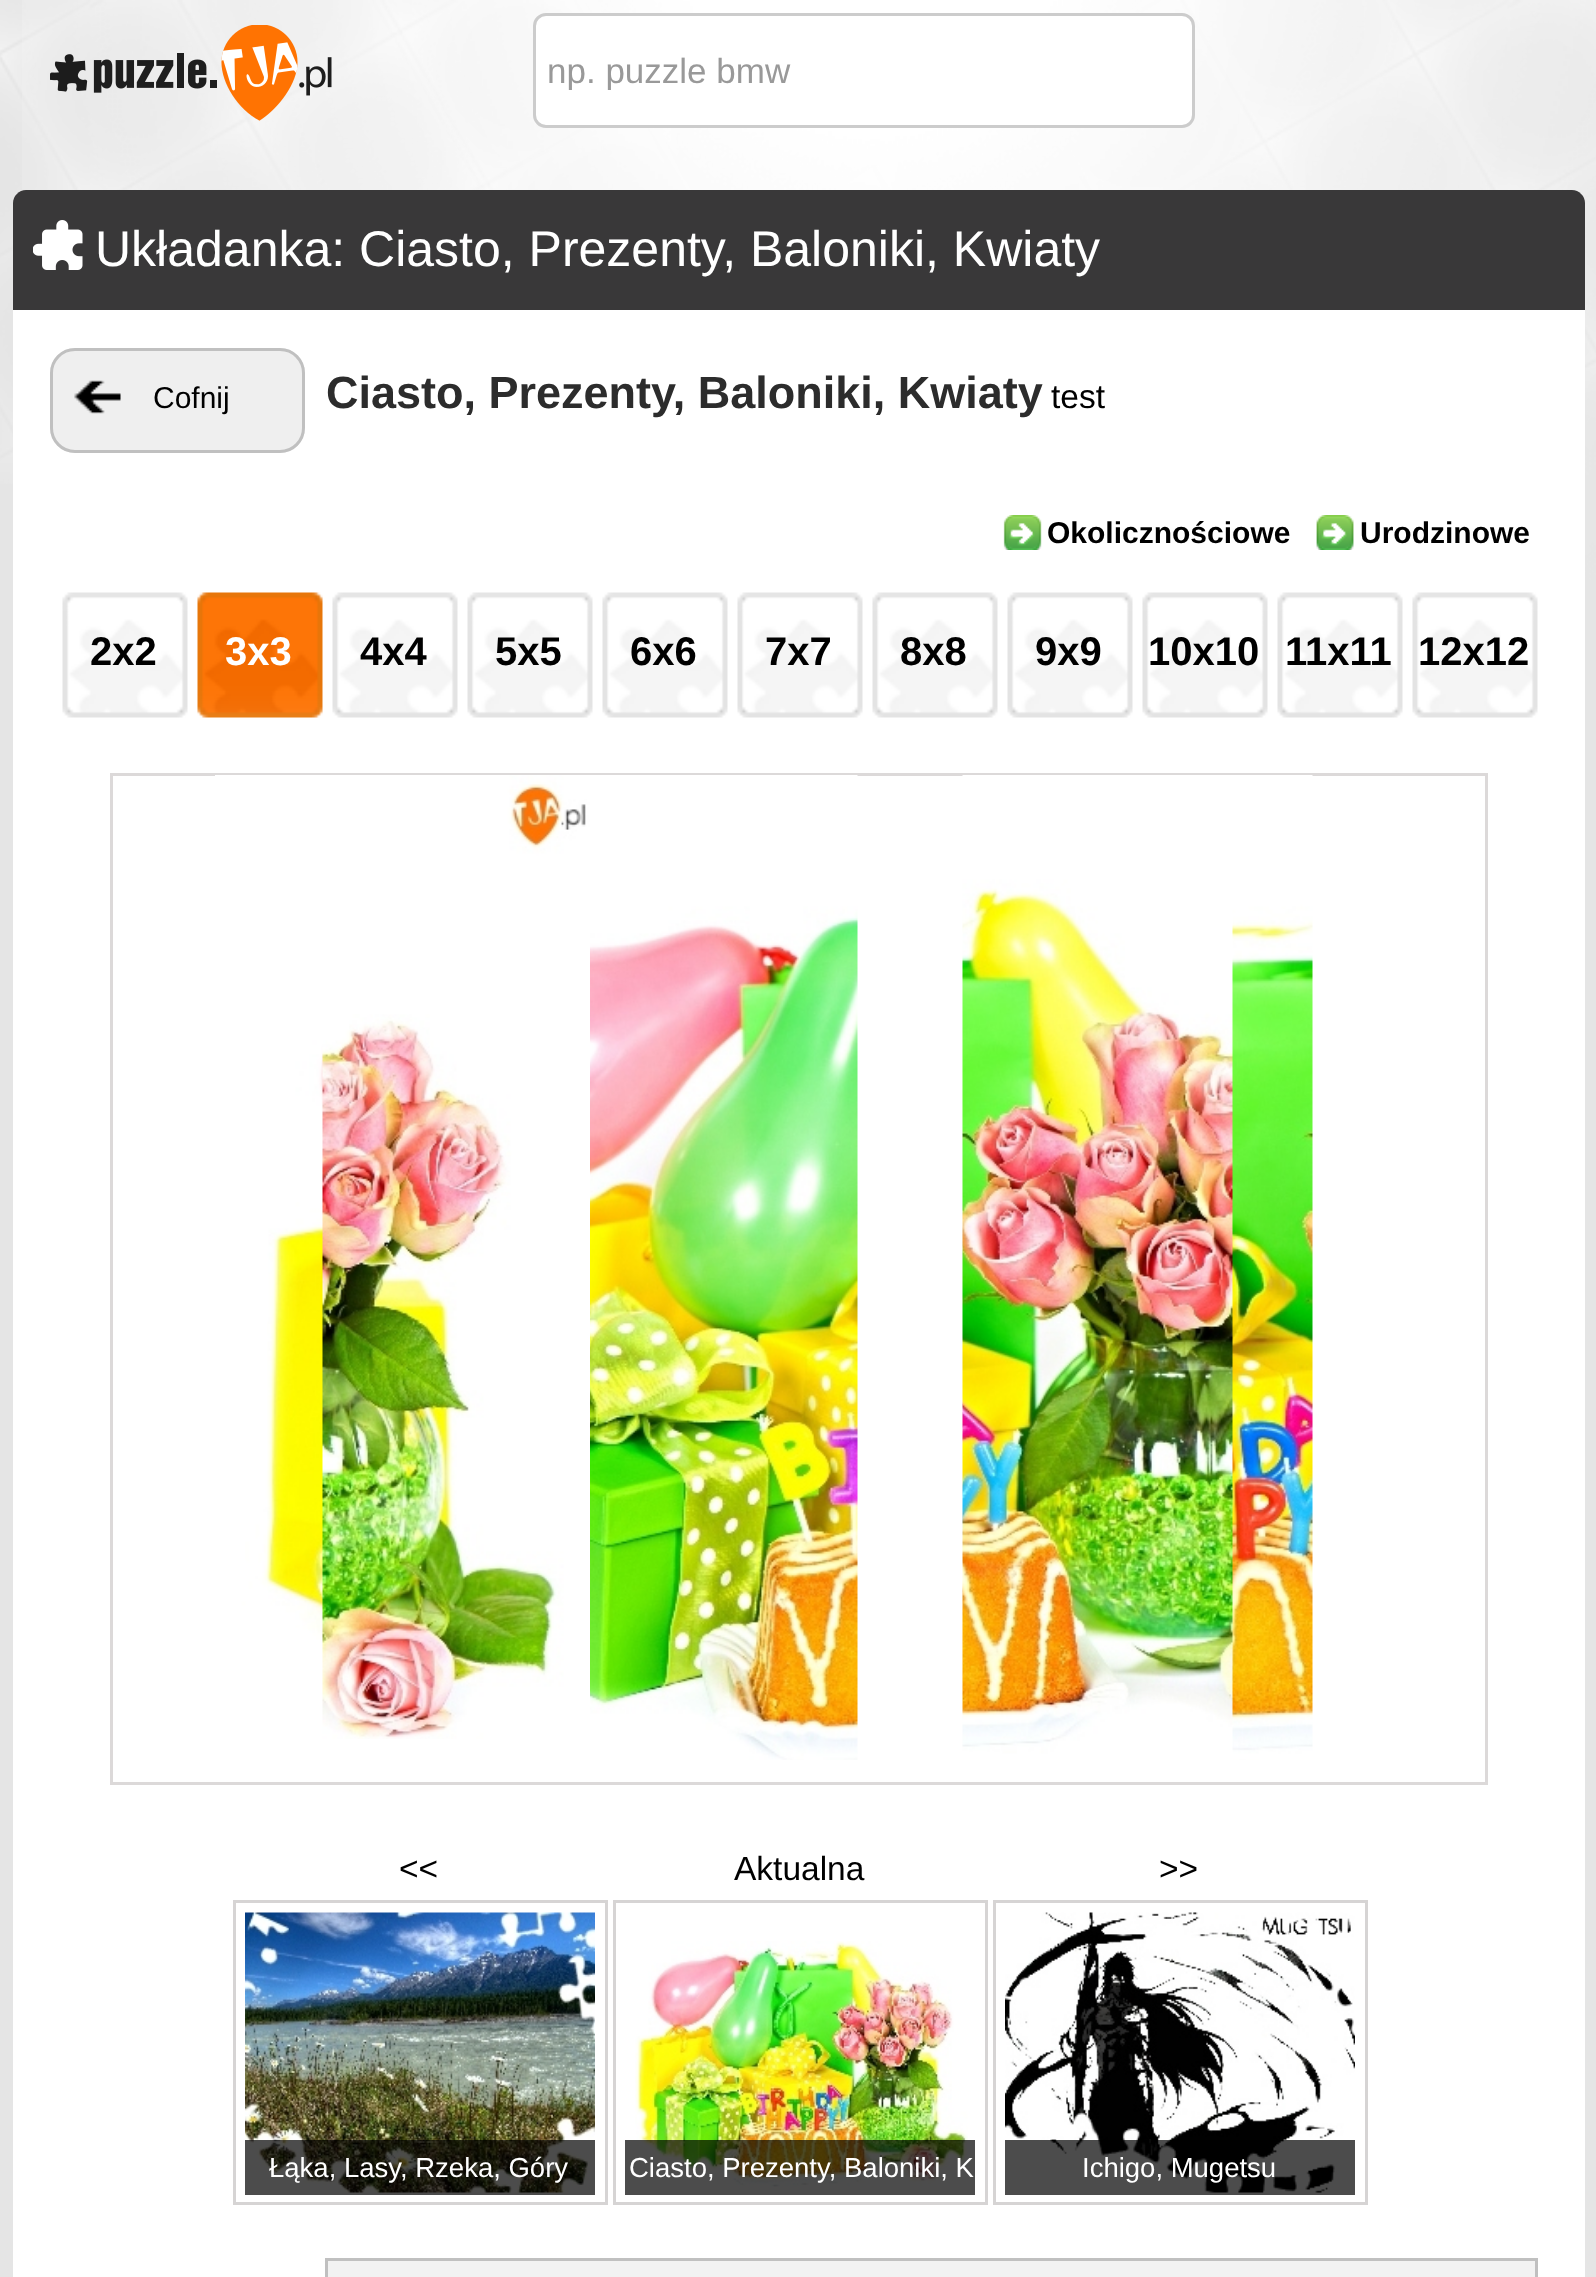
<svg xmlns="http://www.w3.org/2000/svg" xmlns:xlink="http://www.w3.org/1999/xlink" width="1596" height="2277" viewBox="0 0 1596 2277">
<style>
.cls-1{font:35px Liberation Sans;fill:#999999}
.cls-2{font:50px Liberation Sans;fill:#ffffff}
.cls-3{font:30px Liberation Sans;fill:#000000}
.cls-4{font:bold 45px Liberation Sans;fill:#2c2c2c}
.cls-5{font:33.5px Liberation Sans;fill:#000000}
.cls-6{font:bold 30px Liberation Sans;fill:#000000}
.cls-7{font:bold 40px Liberation Sans;fill:#000000}
.cls-8{font:bold 40px Liberation Sans;fill:#ffffff}
.cls-9{font:27.5px Liberation Sans;fill:#ffffff}
</style>
<defs>
<clipPath id="clip1"><rect x="548" y="50" width="645" height="40"/></clipPath>
</defs>
<rect width="100%" height="100%" fill="#e5e5e5"/>
<image xlink:href="image0.png" x="22" y="0" width="1574" height="647"/>
<image xlink:href="image1.png" x="0" y="0" width="1596" height="484"/>
<image xlink:href="image2.png" x="50" y="25" width="282" height="96"/>
<rect fill="#ffffff" stroke="#cccccc" stroke-width="3" x="534.5" y="14.5" width="659" height="112" rx="11.5"/>
<path fill="#393839" d="M26 190H1572C1579 190 1585 196 1585 203V310H13V203C13 196 19 190 26 190Z"/>
<image xlink:href="image3.png" x="33" y="220" width="50" height="50"/>
<rect fill="#ffffff" x="13" y="310" width="1572" height="1967"/>
<rect fill="#efefef" x="50" y="348" width="255" height="105" rx="25"/>
<image xlink:href="image4.png" x="74" y="380" width="47" height="34"/>
<rect fill="none" stroke="#c0c0c0" stroke-width="3" x="51.5" y="349.5" width="252" height="102" rx="23.5"/>
<image xlink:href="image5.png" x="1003" y="515" width="39" height="35"/>
<image xlink:href="image6.png" x="1316" y="515" width="38" height="35"/>
<image xlink:href="image7.png" x="62" y="592" width="126" height="126"/>
<image xlink:href="image8.png" x="197" y="592" width="126" height="126"/>
<image xlink:href="image9.png" x="332" y="592" width="126" height="126"/>
<image xlink:href="image9.png" x="467" y="592" width="126" height="126"/>
<image xlink:href="image9.png" x="602" y="592" width="126" height="126"/>
<image xlink:href="image9.png" x="737" y="592" width="126" height="126"/>
<image xlink:href="image10.png" x="872" y="592" width="126" height="126"/>
<image xlink:href="image11.png" x="1007" y="592" width="126" height="126"/>
<image xlink:href="image12.png" x="1142" y="592" width="126" height="126"/>
<image xlink:href="image9.png" x="1277" y="592" width="126" height="126"/>
<image xlink:href="image9.png" x="1412" y="592" width="126" height="126"/>
<rect fill="none" stroke="#dcd9d9" stroke-width="3" x="111.5" y="774.5" width="1375" height="1009"/>
<image xlink:href="image13.png" x="215" y="775" width="108" height="924"/>
<image xlink:href="image15.png" x="587" y="775" width="271" height="985"/>
<image xlink:href="image14.png" x="322" y="775" width="268" height="964"/>
<image xlink:href="image17.png" x="1232" y="775" width="81" height="985"/>
<image xlink:href="image16.png" x="962" y="775" width="271" height="985"/>
<rect fill="none" stroke="#d6d4d4" stroke-width="3" x="234.5" y="1901.5" width="372" height="302"/>
<image xlink:href="image18.png" x="245" y="1912" width="350" height="281"/>
<rect fill="#000000" fill-opacity="0.7" x="245" y="2140" width="350" height="55"/>
<rect fill="none" stroke="#d6d4d4" stroke-width="3" x="614.5" y="1901.5" width="372" height="302"/>
<image xlink:href="image19.png" x="635" y="1941" width="333" height="246"/>
<rect fill="#000000" fill-opacity="0.7" x="625" y="2140" width="350" height="55"/>
<rect fill="none" stroke="#d6d4d4" stroke-width="3" x="994.5" y="1901.5" width="372" height="302"/>
<image xlink:href="image20.png" x="1005" y="1912" width="350" height="281"/>
<rect fill="#000000" fill-opacity="0.7" x="1005" y="2140" width="350" height="55"/>
<rect fill="#f2f2f2" stroke="#c0c0c0" stroke-width="3" x="326.5" y="2259.5" width="1210" height="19"/>
<g clip-path="url(#clip1)">
<text class="cls-1" x="547" y="83">np. puzzle bmw</text>
</g>
<text class="cls-2" x="95" y="266">Układanka: Ciasto, Prezenty, Baloniki, Kwiaty</text>
<text class="cls-3" x="153" y="408">Cofnij</text>
<text class="cls-4" x="326" y="408">Ciasto, Prezenty, Baloniki, Kwiaty</text>
<text class="cls-5" x="1051" y="408">test</text>
<text class="cls-6" x="1047" y="543">Okolicznościowe</text>
<text class="cls-6" x="1360" y="543">Urodzinowe</text>
<text class="cls-7" x="90" y="665">2x2</text>
<text class="cls-8" x="225" y="665">3x3</text>
<text class="cls-7" x="360" y="665">4x4</text>
<text class="cls-7" x="495" y="665">5x5</text>
<text class="cls-7" x="630" y="665">6x6</text>
<text class="cls-7" x="765" y="665">7x7</text>
<text class="cls-7" x="900" y="665">8x8</text>
<text class="cls-7" x="1035" y="665">9x9</text>
<text class="cls-7" x="1148" y="665">10x10</text>
<text class="cls-7" x="1285" y="665">11x11</text>
<text class="cls-7" x="1418" y="665">12x12</text>
<text class="cls-5" x="399" y="1880">&lt;&lt;</text>
<text class="cls-9" x="269" y="2177">Łąka, Lasy, Rzeka, Góry</text>
<text class="cls-5" x="734" y="1880">Aktualna</text>
<text class="cls-9" x="629" y="2177">Ciasto, Prezenty, Baloniki, K</text>
<text class="cls-5" x="1159" y="1880">&gt;&gt;</text>
<text class="cls-9" x="1082" y="2177">Ichigo, Mugetsu</text>
</svg>
